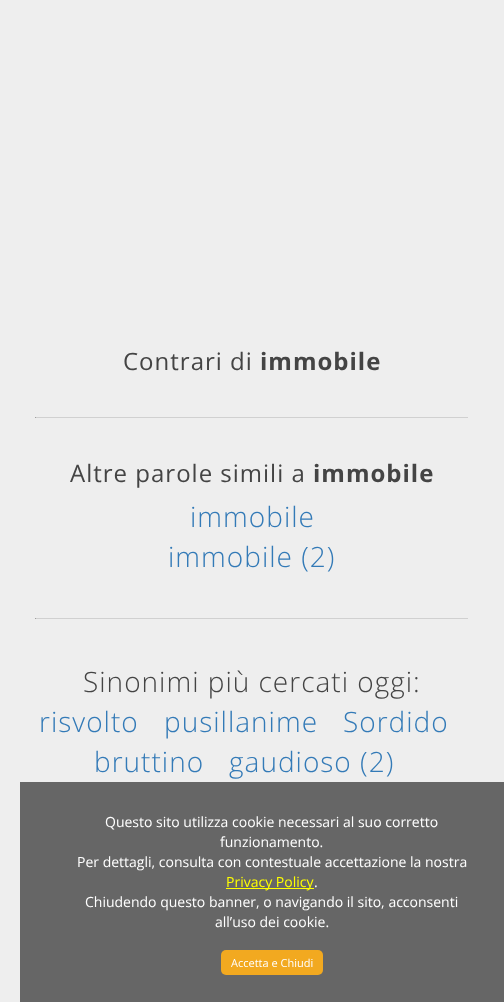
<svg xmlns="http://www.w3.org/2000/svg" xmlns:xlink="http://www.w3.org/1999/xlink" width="504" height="1002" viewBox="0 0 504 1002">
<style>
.cls-1{font:24px Open Sans;letter-spacing:1px;fill:#444444}
.cls-2{font:bold 24px Open Sans;letter-spacing:1px;fill:#444444}
.cls-3{font:300 28px Open Sans;letter-spacing:1px;fill:#337ab7}
.cls-4{font:300 28px Open Sans;letter-spacing:1px;fill:#444444}
.cls-5{font:14px Open Sans;fill:#ffffff}
.cls-6{font:14px Open Sans;fill:#ffff00}
.cls-7{font:11px Open Sans;fill:#ffffff}
</style>
<rect width="100%" height="100%" fill="#eeeeee"/>
<rect fill="#d0d0d0" x="35" y="417" width="434" height="1"/>
<rect fill="#eeeeee" x="468" y="417" width="1" height="1"/>
<rect fill="#9f9f9f" x="35" y="417" width="1" height="1"/>
<rect fill="#d0d0d0" x="35" y="618" width="434" height="1"/>
<rect fill="#eeeeee" x="468" y="618" width="1" height="1"/>
<rect fill="#9f9f9f" x="35" y="618" width="1" height="1"/>
<rect fill="#666666" x="20" y="782" width="484" height="220"/>
<rect fill="#ffff00" x="226" y="888" width="88" height="1"/>
<rect fill="#f2a920" x="221" y="950" width="102" height="25" rx="5"/>
<text class="cls-1" x="123" y="370">Contrari di</text>
<text class="cls-2" x="260" y="370">immobile</text>
<text class="cls-1" x="70" y="482">Altre parole simili a</text>
<text class="cls-2" x="313" y="482">immobile</text>
<text class="cls-3" x="190" y="527">immobile</text>
<text class="cls-3" x="168" y="567">immobile (2)</text>
<text class="cls-4" x="83" y="692">Sinonimi più cercati oggi:</text>
<text class="cls-3" x="39" y="732">risvolto</text>
<text class="cls-3" x="164" y="732">pusillanime</text>
<text class="cls-3" x="343" y="732">Sordido</text>
<text class="cls-3" x="94" y="772">bruttino</text>
<text class="cls-3" x="229" y="772">gaudioso (2)</text>
<text class="cls-5" x="105" y="827">Questo sito utilizza cookie necessari al suo corretto</text>
<text class="cls-5" x="220" y="847">funzionamento.</text>
<text class="cls-5" x="77" y="867">Per dettagli, consulta con contestuale accettazione la nostra</text>
<text class="cls-6" x="226" y="887">Privacy Policy</text>
<text class="cls-5" x="314" y="887">.</text>
<text class="cls-5" x="85" y="907">Chiudendo questo banner, o navigando il sito, acconsenti</text>
<text class="cls-5" x="215" y="927">all’uso dei cookie.</text>
<text class="cls-7" x="231" y="967">Accetta e Chiudi</text>
</svg>
